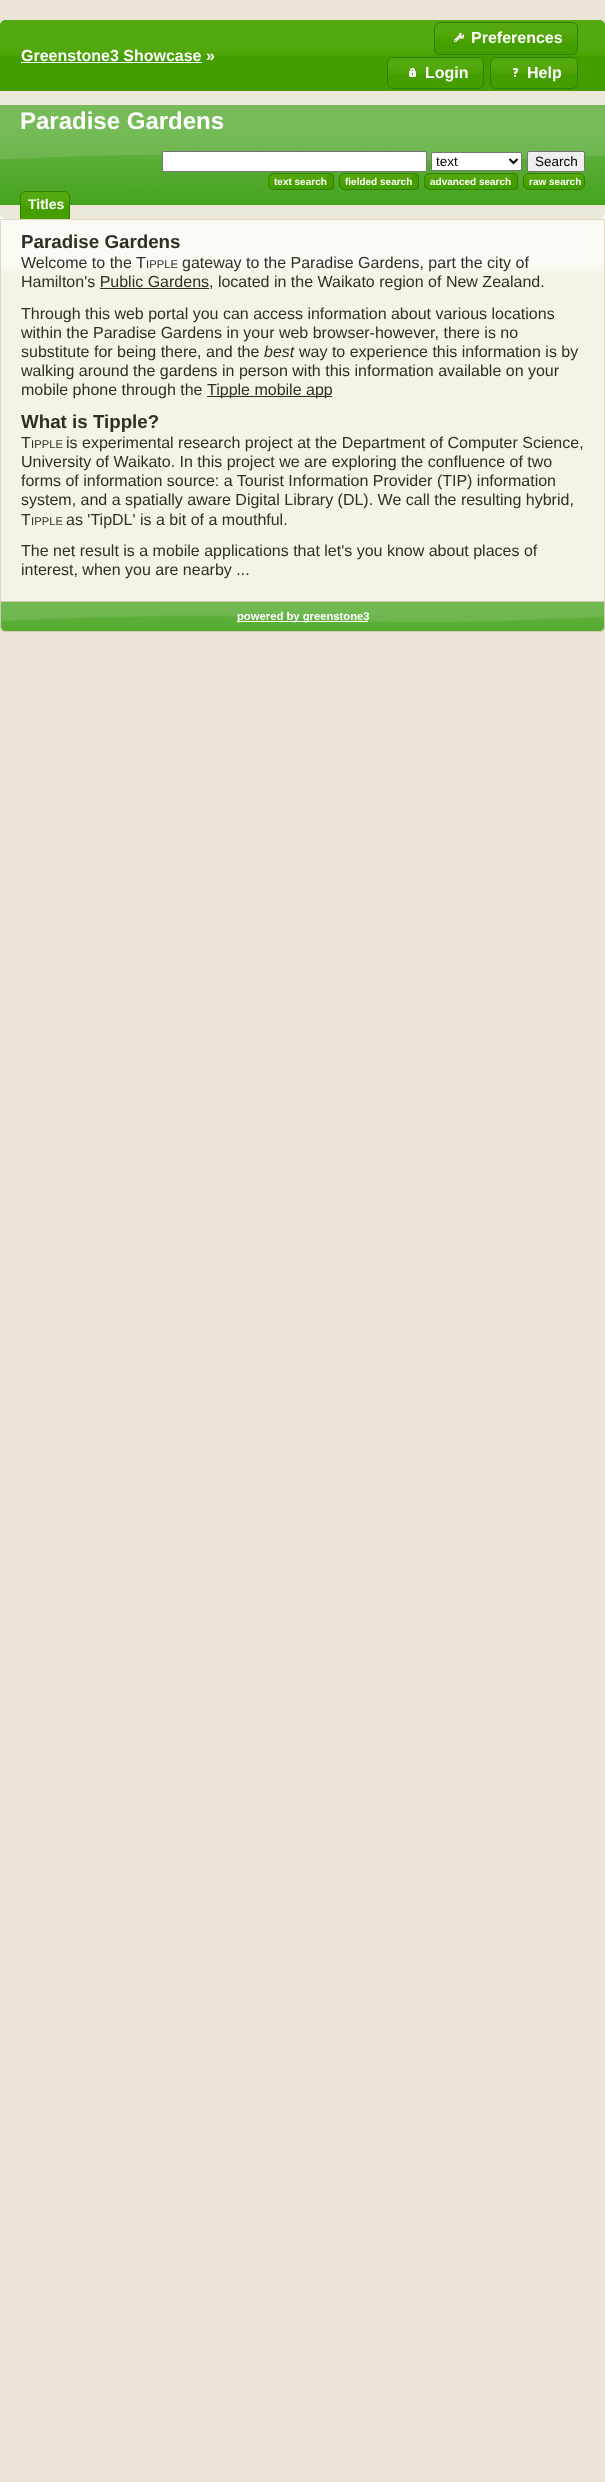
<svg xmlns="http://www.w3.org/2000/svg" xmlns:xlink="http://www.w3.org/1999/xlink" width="605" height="2482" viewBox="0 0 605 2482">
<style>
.cls-1{font:bold 16px Liberation Sans;fill:#ffffff}
.cls-2{font:bold 24px Liberation Sans;fill:#ffffff}
.cls-3{font:13.5px Liberation Sans;fill:#000000}
.cls-4{font:bold 10px Liberation Sans;fill:#ffffff}
.cls-5{font:bold 14px Liberation Sans;fill:#ffffff}
.cls-6{font:bold 18.75px Liberation Sans;fill:#312e25}
.cls-7{font:16px Liberation Sans;fill:#312e25}
.cls-8{font:11.25px Liberation Sans;fill:#312e25}
.cls-9{font:italic 16px Liberation Sans;fill:#312e25}
.cls-10{font:bold 11.25px Liberation Sans;fill:#ffffff}
</style>
<rect width="100%" height="100%" fill="#eae4d9"/>
<path fill="#459e00" d="M6 20H599C602.5 20 605 22.5 605 26V91H0V26C0 22.5 2.5 20 6 20Z"/>
<image xlink:href="image0.png" x="0" y="20" width="605" height="36"/>
<rect fill="#ffffff" x="21" y="62" width="181" height="1"/>
<image xlink:href="image1.png" x="434" y="22" width="144" height="32"/>
<rect fill="none" stroke="#327e04" x="434.5" y="22.5" width="143" height="32" rx="5.5"/>
<image xlink:href="image2.png" x="454" y="33" width="10" height="9"/>
<image xlink:href="image3.png" x="387" y="57" width="97" height="17"/>
<rect fill="none" stroke="#327e04" x="387.5" y="57.5" width="96" height="31" rx="5.5"/>
<image xlink:href="image4.png" x="409" y="68" width="7" height="9"/>
<image xlink:href="image5.png" x="490" y="57" width="88" height="17"/>
<rect fill="none" stroke="#327e04" x="490.5" y="57.5" width="87" height="31" rx="5.5"/>
<image xlink:href="image6.png" x="513" y="68" width="5" height="9"/>
<rect fill="#ffffff" x="0" y="91" width="605" height="541" rx="6"/>
<path fill="#ece8da" d="M0 91H605V213C605 216.5 602.5 219 599 219H6C2.5 219 0 216.5 0 213Z"/>
<image xlink:href="image7.png" x="0" y="105" width="605" height="100"/>
<rect fill="#ffffff" stroke="#767676" x="162.5" y="151.5" width="264" height="20" rx="1.5"/>
<rect fill="#ffffff" stroke="#767676" x="431.5" y="152.5" width="90" height="18" rx="1.5"/>
<path fill="none" stroke="#000000" stroke-width="2" d="M509.5 159L513.5 163L517.5 159"/>
<rect fill="#efefef" stroke="#767676" x="527.5" y="151.5" width="57" height="20" rx="1.5"/>
<image xlink:href="image8.png" x="268" y="173" width="66" height="17"/>
<image xlink:href="image9.png" x="339" y="173" width="80" height="17"/>
<image xlink:href="image10.png" x="424" y="173" width="94" height="17"/>
<image xlink:href="image11.png" x="523" y="173" width="62" height="17"/>
<path fill="#327e04" fill-rule="evenodd" d="M274 173H327V190H274C271 190 268 187 268 184V179C268 176 271 173 274 173ZM274 174H327V189H272C267 187 267 174 274 174Z"/>
<path fill="#459e00" d="M327 173H330.5C332.5 173 334 174.5 334 176.5V186.5C334 188.5 332.5 190 330.5 190H327Z"/>
<path fill="#327e04" fill-rule="evenodd" d="M327 173C334.5 173 334 174 334 181.5C334 189 334.5 190 327 190ZM327 174C334 174 333 174.5 333 181.5C333 188.5 334 189 327 189Z"/>
<path fill="#327e04" fill-rule="evenodd" d="M345 173H412V190H356C352 190 347 191 343 190C337 187 337 173 345 173ZM345 174H412V189H345C342 189 340 187 340 184V179C340 176 342 174 345 174Z"/>
<path fill="#459e00" d="M412 173H415.5C417.5 173 419 174.5 419 176.5V186.5C419 188.5 417.5 190 415.5 190H412Z"/>
<path fill="#327e04" fill-rule="evenodd" d="M412 173C419.5 173 419 174 419 181.5C419 189 419.5 190 412 190ZM412 174C419 174 418 174.5 418 181.5C418 188.5 419 189 412 189Z"/>
<path fill="#327e04" fill-rule="evenodd" d="M430 173H511V190H430C427 190 424 187 424 184V179C424 176 427 173 430 173ZM430 174H511V189H429C423 188 423 174 430 174Z"/>
<path fill="#459e00" d="M511 173H514.5C516.5 173 518 174.5 518 176.5V186.5C518 188.5 516.5 190 514.5 190H511Z"/>
<path fill="#327e04" fill-rule="evenodd" d="M511 173C518.5 173 518 174 518 181.5C518 189 518.5 190 511 190ZM511 174C518 174 517 174.5 517 181.5C517 188.5 518 189 511 189Z"/>
<rect fill="none" stroke="#327e04" x="523.5" y="173.5" width="61" height="16" rx="5.5"/>
<path fill="#459e00" d="M26 191H64C67.5 191 70 193.5 70 197V219H20V197C20 193.5 22.5 191 26 191Z"/>
<image xlink:href="image12.png" x="20" y="191" width="50" height="15"/>
<path fill="#327e04" fill-rule="evenodd" d="M26 191H64C67 191 70 194 70 197V219H20V197C20 194 23 191 26 191ZM26 192H64C67 192 69 194 69 197V219H21V197C21 194 23 192 26 192Z"/>
<rect fill="#f5f3e5" x="1" y="273" width="603" height="328"/>
<image xlink:href="image13.png" x="1" y="220" width="603" height="53"/>
<rect fill="none" stroke="#dfd9c3" x="0.5" y="219.5" width="604" height="382"/>
<rect fill="#312e25" x="100" y="288" width="109" height="1"/>
<rect fill="#312e25" x="207" y="396" width="125" height="1"/>
<image xlink:href="image14.png" x="0" y="602" width="605" height="30"/>
<path fill="none" stroke="#d4ccb0" d="M.5 601.5H604.5V626C604.5 629 602 631.5 599 631.5H6C3 631.5 .5 629 .5 626Z"/>
<rect fill="#ffffff" x="237" y="621" width="131" height="1"/>
<text class="cls-1" x="21" y="61">Greenstone3 Showcase »</text>
<text class="cls-1" x="471" y="43">Preferences</text>
<text class="cls-1" x="425" y="78">Login</text>
<text class="cls-1" x="527" y="78">Help</text>
<text class="cls-2" x="20" y="129">Paradise Gardens</text>
<text class="cls-3" x="436" y="166">text</text>
<text class="cls-3" x="535" y="166">Search</text>
<text class="cls-4" x="274" y="185">text search</text>
<text class="cls-4" x="345" y="185">fielded search</text>
<text class="cls-4" x="430" y="185">advanced search</text>
<text class="cls-4" x="529" y="185">raw search</text>
<text class="cls-5" x="28" y="209">Titles</text>
<text class="cls-6" x="21" y="248">Paradise Gardens</text>
<text class="cls-7" x="21" y="268">Welcome to the T</text>
<text class="cls-8" x="146" y="268">IPPLE</text>
<text class="cls-7" x="182" y="268">gateway to the Paradise Gardens, part the city of</text>
<text class="cls-7" x="21" y="287">Hamilton's Public Gardens, located in the Waikato region of New Zealand.</text>
<text class="cls-7"><tspan x="21" y="319">Through this web portal you can access information about various locations</tspan><tspan x="21" y="338">within the Paradise Gardens in your web browser-however, there is no</tspan><tspan x="21" y="357">substitute for being there, and the</tspan></text>
<text class="cls-9" x="264" y="357">best</text>
<text class="cls-7" x="299" y="357">way to experience this information is by</text>
<text class="cls-7"><tspan x="21" y="376">walking around the gardens in person with this information available on your</tspan><tspan x="21" y="395">mobile phone through the</tspan></text>
<text class="cls-7" x="207" y="395">Tipple mobile app</text>
<text class="cls-6" x="21" y="428">What is Tipple?</text>
<text class="cls-7" x="21" y="448">T</text>
<text class="cls-8" x="31" y="448">IPPLE</text>
<text class="cls-7" x="66" y="448">is experimental research project at the Department of Computer Science,</text>
<text class="cls-7"><tspan x="21" y="467">University of Waikato. In this project we are exploring the confluence of two</tspan><tspan x="21" y="486">forms of information source: a Tourist Information Provider (TIP) information</tspan><tspan x="21" y="505">system, and a spatially aware Digital Library (DL). We call the resulting hybrid,</tspan><tspan x="21" y="525">T</tspan></text>
<text class="cls-8" x="31" y="525">IPPLE</text>
<text class="cls-7" x="66" y="525">as 'TipDL' is a bit of a mouthful.</text>
<text class="cls-7"><tspan x="21" y="556">The net result is a mobile applications that let's you know about places of</tspan><tspan x="21" y="575">interest, when you are nearby ...</tspan></text>
<text class="cls-10" x="237" y="620">powered by greenstone3</text>
</svg>
